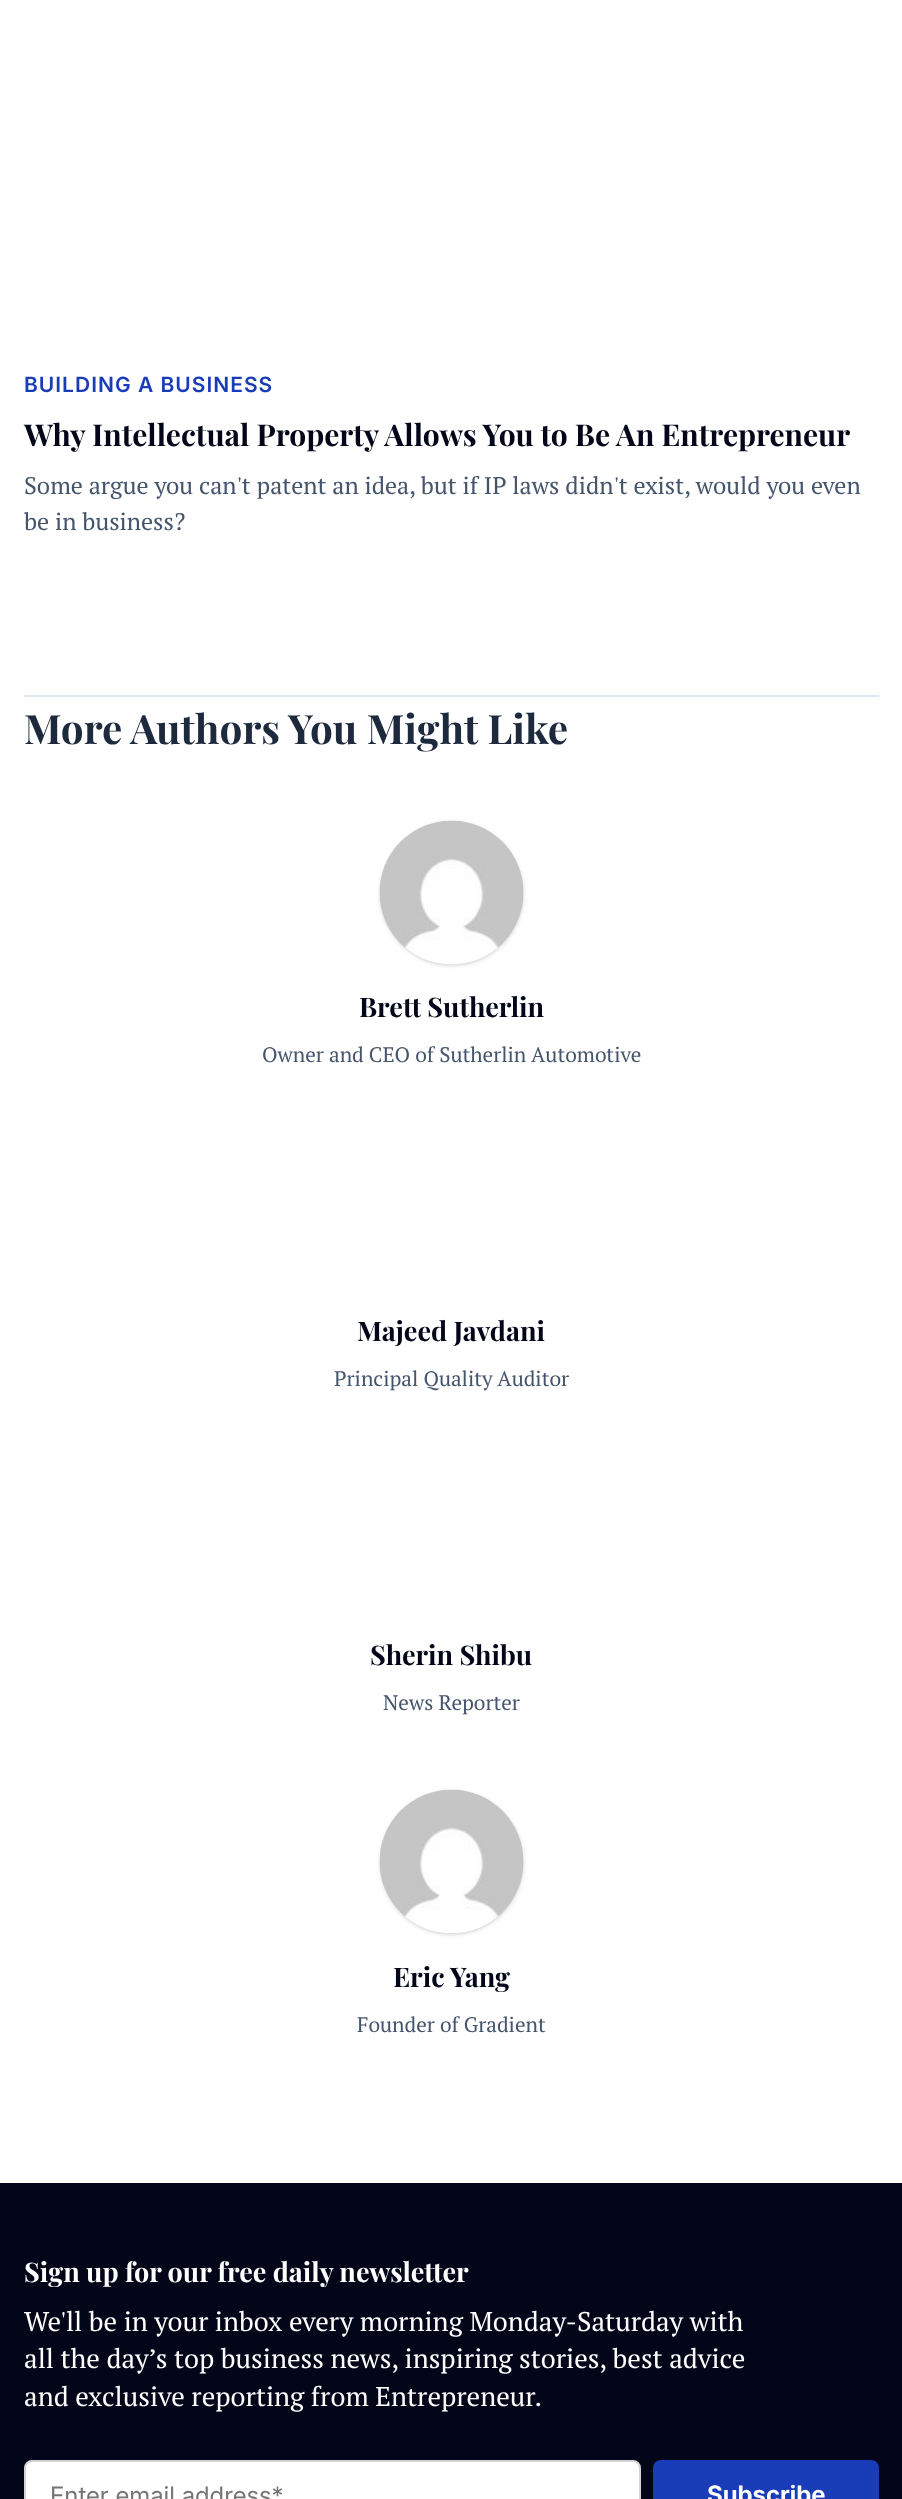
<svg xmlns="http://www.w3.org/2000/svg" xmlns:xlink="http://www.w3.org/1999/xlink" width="902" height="2499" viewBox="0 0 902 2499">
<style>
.cls-1{font:600 21px Inter;letter-spacing:1px;fill:#193cb8}
.cls-2{font:bold 30px Playfair Display;fill:#020618}
.cls-3{font:24px PT Serif;fill:#45556c}
.cls-4{font:bold 40.5px Playfair Display;fill:#1d293d}
.cls-5{font:bold 27px Playfair Display;fill:#020618}
.cls-6{font:21px PT Serif;fill:#45556c}
.cls-7{font:bold 27px Playfair Display;fill:#ffffff}
.cls-8{font:27px PT Serif;fill:#ffffff}
.cls-9{font:24px Inter;fill:#757575}
.cls-10{font:bold 24px Inter;fill:#ffffff}
</style>
<rect width="100%" height="100%" fill="#ffffff"/>
<rect fill="#e2e8f0" x="24" y="695" width="855" height="2"/>
<rect fill="#000000" fill-opacity="0.1" filter="blur(2px)" x="380" y="822" width="144" height="144" rx="72"/>
<rect fill="#000000" fill-opacity="0.1" filter="blur(1.5px)" x="381" y="824" width="141" height="141" rx="70.5"/>
<image xlink:href="image0.png" x="379" y="820" width="145" height="145"/>
<rect fill="#000000" fill-opacity="0.1" filter="blur(2px)" x="380" y="1791" width="144" height="144" rx="72"/>
<rect fill="#000000" fill-opacity="0.1" filter="blur(1.5px)" x="381" y="1793" width="141" height="141" rx="70.5"/>
<image xlink:href="image1.png" x="379" y="1789" width="145" height="145"/>
<rect fill="#020618" x="0" y="2183" width="902" height="316"/>
<rect fill="#ffffff" stroke="#d4d4d4" stroke-width="2" x="25" y="2461" width="615" height="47" rx="7"/>
<rect fill="#193cb8" x="653" y="2460" width="226" height="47" rx="8"/>
<text class="cls-1" x="24" y="392">BUILDING A BUSINESS</text>
<text class="cls-2" x="24" y="446">Why Intellectual Property Allows You to Be An Entrepreneur</text>
<text class="cls-3"><tspan x="24" y="494">Some argue you can't patent an idea, but if IP laws didn't exist, would you even</tspan><tspan x="24" y="530">be in business?</tspan></text>
<text class="cls-4" x="24" y="744">More Authors You Might Like</text>
<text class="cls-5" x="359" y="1017">Brett Sutherlin</text>
<text class="cls-6" x="262" y="1062">Owner and CEO of Sutherlin Automotive</text>
<text class="cls-5" x="357" y="1341">Majeed Javdani</text>
<text class="cls-6" x="334" y="1386">Principal Quality Auditor</text>
<text class="cls-5" x="370" y="1665">Sherin Shibu</text>
<text class="cls-6" x="383" y="1710">News Reporter</text>
<text class="cls-5" x="393" y="1987">Eric Yang</text>
<text class="cls-6" x="357" y="2032">Founder of Gradient</text>
<text class="cls-7" x="24" y="2282">Sign up for our free daily newsletter</text>
<text class="cls-8"><tspan x="24" y="2331">We'll be in your inbox every morning Monday-Saturday with</tspan><tspan x="24" y="2368">all the day’s top business news, inspiring stories, best advice</tspan><tspan x="24" y="2406">and exclusive reporting from Entrepreneur.</tspan></text>
<text class="cls-9" x="50" y="2504">Enter email address*</text>
<text class="cls-10" x="707" y="2503">Subscribe</text>
</svg>
